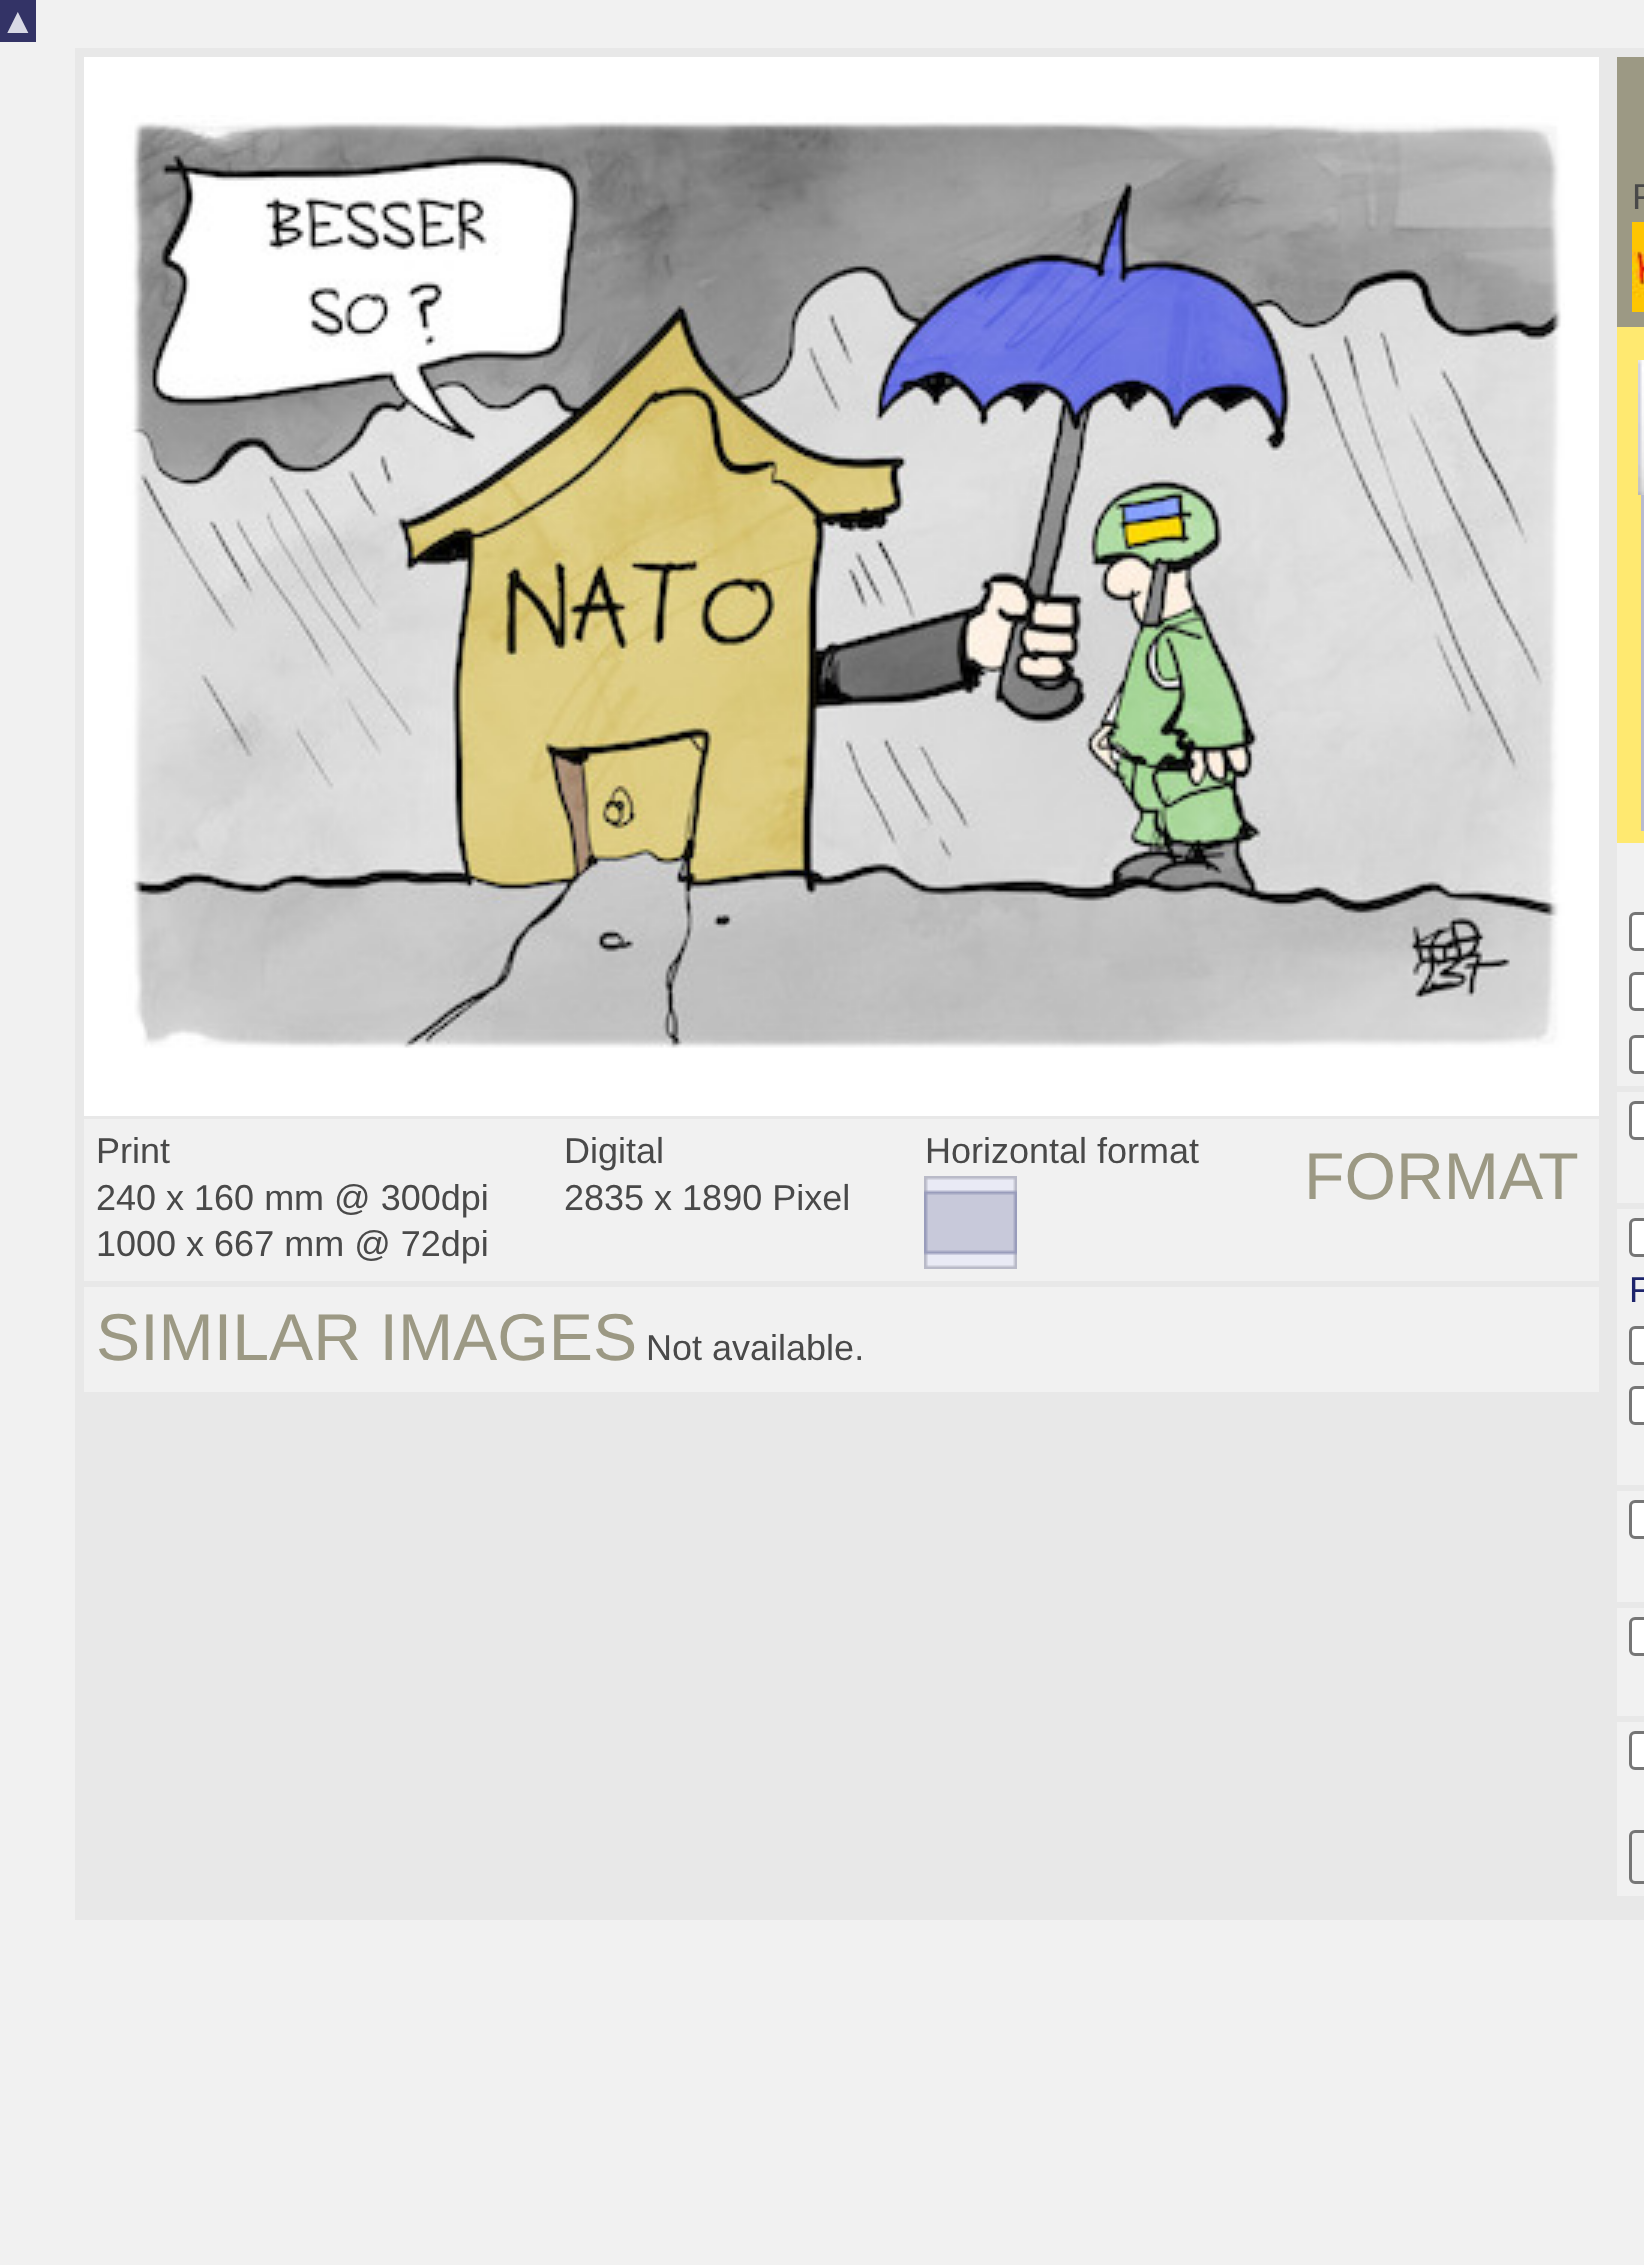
<svg xmlns="http://www.w3.org/2000/svg" xmlns:xlink="http://www.w3.org/1999/xlink" width="1644" height="2265" viewBox="0 0 1644 2265">
<style>
.cls-1{font:36px Liberation Sans;fill:#d8d9e5}
.cls-2{font:36px Liberation Sans;fill:#494949}
.cls-3{font:66.25px Liberation Sans;fill:#9c9984}
.cls-4{font:36px Liberation Sans;fill:#1d246c}
</style>
<rect width="100%" height="100%" fill="#f1f1f1"/>
<rect fill="#333366" x="0" y="0" width="36" height="42"/>
<rect fill="#e8e8e8" x="75" y="48" width="1569" height="1872"/>
<rect fill="#ffffff" x="84" y="57" width="1515" height="1059"/>
<image xlink:href="image0.png" x="126" y="115" width="1439" height="933"/>
<rect fill="#f1f1f1" x="84" y="1119" width="1515" height="162"/>
<image xlink:href="image1.png" x="924" y="1176" width="93" height="93"/>
<rect fill="#f1f1f1" x="84" y="1287" width="1515" height="105"/>
<rect fill="#9c9984" x="1617" y="57" width="27" height="270"/>
<image xlink:href="image2.png" x="1632" y="222" width="12" height="90"/>
<rect fill="#ffe970" x="1617" y="327" width="27" height="516"/>
<rect fill="none" stroke="#b9bbd0" stroke-width="3" x="1642.5" y="469.5" width="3" height="360"/>
<image xlink:href="image3.png" x="1638" y="360" width="6" height="135"/>
<rect fill="#f1f1f1" x="1617" y="843" width="27" height="1053"/>
<rect fill="#ffffff" stroke="#767676" stroke-width="3" x="1630.5" y="913.5" width="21" height="36" rx="4.5"/>
<rect fill="#ffffff" stroke="#767676" stroke-width="3" x="1630.5" y="973.5" width="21" height="36" rx="4.5"/>
<rect fill="#ffffff" stroke="#767676" stroke-width="3" x="1630.5" y="1036.5" width="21" height="36" rx="4.5"/>
<rect fill="#e8e8e8" x="1617" y="1086" width="27" height="6"/>
<rect fill="#ffffff" stroke="#767676" stroke-width="3" x="1630.5" y="1102.5" width="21" height="36" rx="4.5"/>
<rect fill="#e8e8e8" x="1617" y="1203" width="27" height="6"/>
<rect fill="#ffffff" stroke="#767676" stroke-width="3" x="1630.5" y="1219.5" width="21" height="36" rx="4.5"/>
<rect fill="#ffffff" stroke="#767676" stroke-width="3" x="1630.5" y="1327.5" width="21" height="36" rx="4.5"/>
<rect fill="#ffffff" stroke="#767676" stroke-width="3" x="1630.5" y="1387.5" width="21" height="36" rx="4.5"/>
<rect fill="#e8e8e8" x="1617" y="1485" width="27" height="6"/>
<rect fill="#ffffff" stroke="#767676" stroke-width="3" x="1630.5" y="1501.5" width="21" height="36" rx="4.5"/>
<rect fill="#e8e8e8" x="1617" y="1602" width="27" height="6"/>
<rect fill="#ffffff" stroke="#767676" stroke-width="3" x="1630.5" y="1618.5" width="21" height="36" rx="4.5"/>
<rect fill="#e8e8e8" x="1617" y="1716" width="27" height="6"/>
<rect fill="#ffffff" stroke="#767676" stroke-width="3" x="1630.5" y="1732.5" width="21" height="36" rx="4.5"/>
<rect fill="none" stroke="#767676" stroke-width="3" x="1630.5" y="1831.5" width="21" height="51" rx="4.5"/>
<text class="cls-1" x="0" y="33">▲</text>
<text class="cls-2"><tspan x="96" y="1163">Print</tspan><tspan x="96" y="1210">240 x 160 mm @ 300dpi</tspan><tspan x="96" y="1256">1000 x 667 mm @ 72dpi</tspan></text>
<text class="cls-2"><tspan x="564" y="1163">Digital</tspan><tspan x="564" y="1210">2835 x 1890 Pixel</tspan></text>
<text class="cls-2" x="925" y="1163">Horizontal format</text>
<text class="cls-3" x="1304" y="1199">FORMAT</text>
<text class="cls-3" x="96" y="1360">SIMILAR IMAGES</text>
<text class="cls-2" x="646" y="1360">Not available.</text>
<text class="cls-2" x="1632" y="209">F</text>
<text class="cls-4" x="1629" y="1302">F</text>
</svg>
